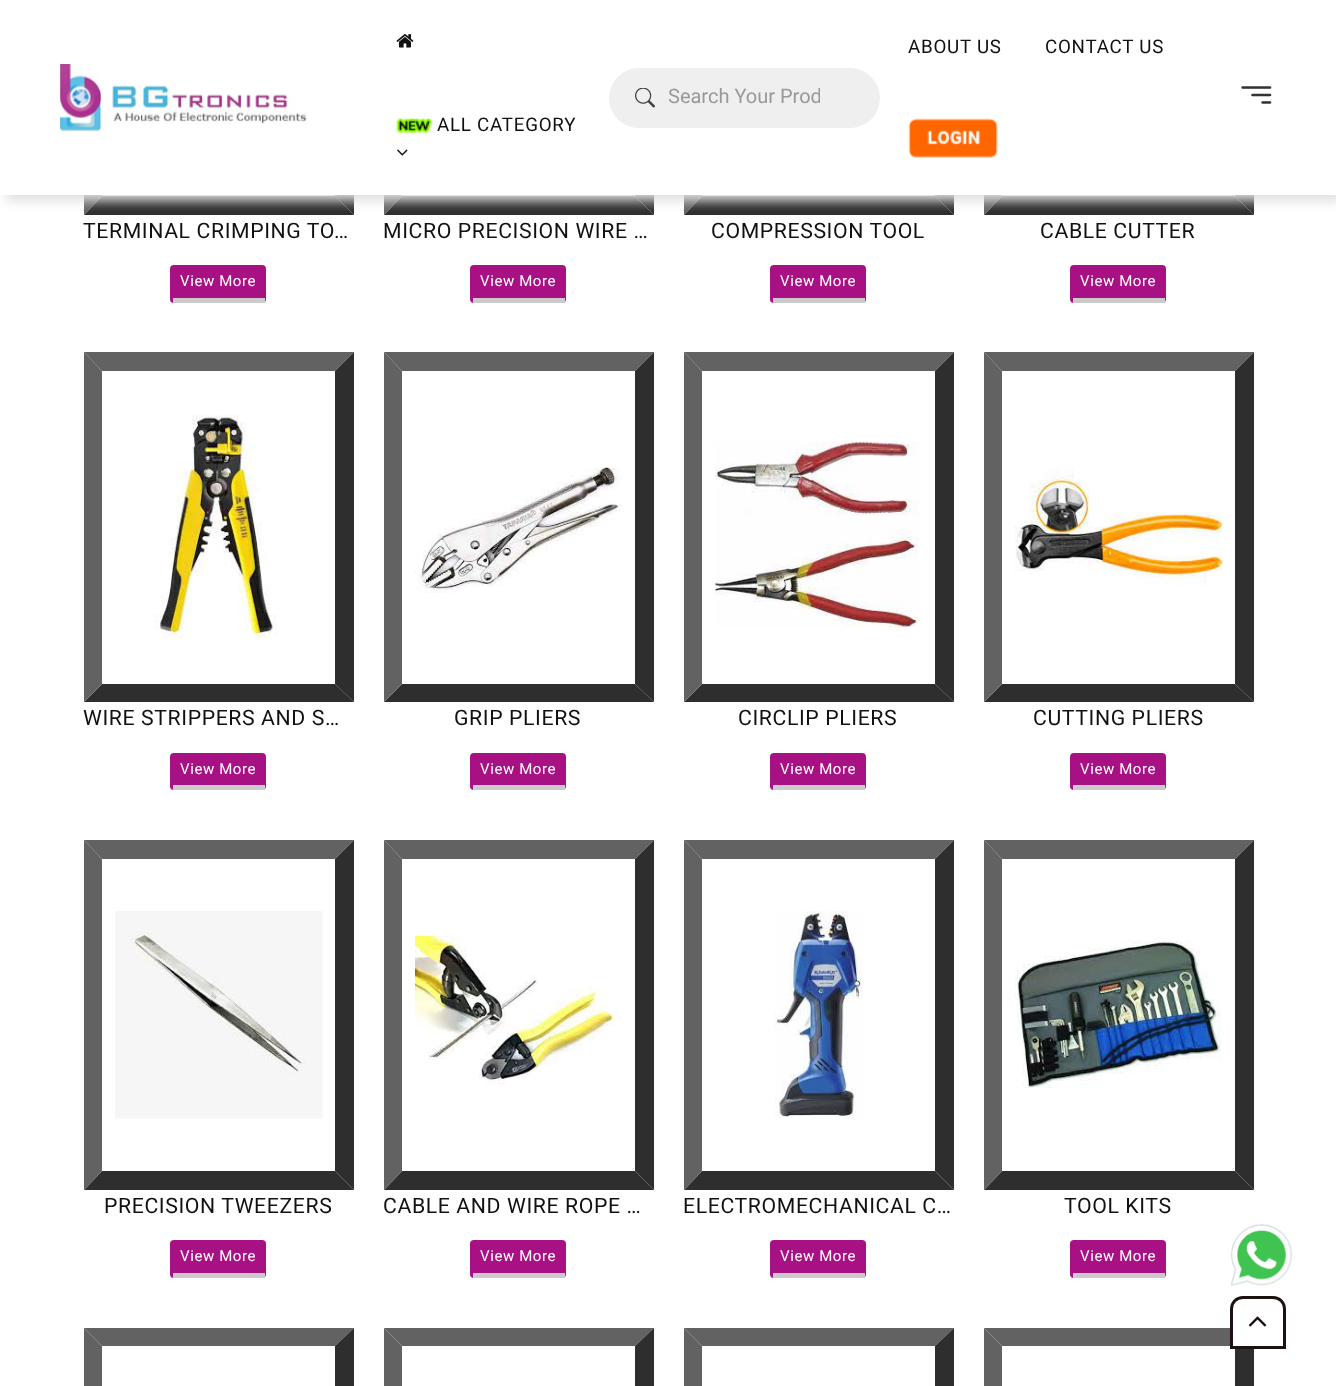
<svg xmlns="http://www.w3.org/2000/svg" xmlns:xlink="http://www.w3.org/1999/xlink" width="1336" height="1386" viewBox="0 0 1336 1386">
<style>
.cls-1{font:18.75px Roboto;letter-spacing:0.75px;fill:#111111}
.cls-2{font:20px Roboto;fill:#99999b}
.cls-3{font:21.25px Roboto;letter-spacing:0.6px;fill:#111111}
.cls-4{font:15px Roboto;letter-spacing:0.6px;fill:#ffffff}
</style>
<defs>
<clipPath id="clip1"><rect x="669" y="85" width="151" height="24"/></clipPath>
</defs>
<rect width="100%" height="100%" fill="#ffffff"/>
<path fill="#2e2e2e" d="M354-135V215L335 196V-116Z"/>
<path fill="#2e2e2e" d="M354 215H84L102 196H335Z"/>
<path fill="#626262" d="M84 215V-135L102-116V196Z"/>
<path fill="#2e2e2e" d="M654-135V215L635 196V-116Z"/>
<path fill="#2e2e2e" d="M654 215H384L402 196H635Z"/>
<path fill="#626262" d="M384 215V-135L402-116V196Z"/>
<path fill="#2e2e2e" d="M954-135V215L935 196V-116Z"/>
<path fill="#2e2e2e" d="M954 215H684L702 196H935Z"/>
<path fill="#626262" d="M684 215V-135L702-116V196Z"/>
<path fill="#2e2e2e" d="M1254-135V215L1235 196V-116Z"/>
<path fill="#2e2e2e" d="M1254 215H984L1002 196H1235Z"/>
<path fill="#626262" d="M984 215V-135L1002-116V196Z"/>
<rect fill="#dfdfdf" filter="blur(6px)" x="6" y="6" width="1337" height="195"/>
<rect fill="#ffffff" x="0" y="0" width="1336" height="195"/>
<image xlink:href="image0.png" x="908" y="118" width="90" height="40"/>
<image xlink:href="image1.png" x="60" y="64" width="247" height="68"/>
<rect fill="#efefef" x="609" y="68" width="271" height="60" rx="30"/>
<image xlink:href="image2.png" x="635" y="88" width="20" height="20"/>
<image xlink:href="image3.png" x="1241" y="86" width="31" height="18"/>
<image xlink:href="image4.png" x="396" y="34" width="18" height="14"/>
<image xlink:href="image5.png" x="396" y="118" width="37" height="15"/>
<image xlink:href="image6.png" x="397" y="149" width="11" height="7"/>
<rect fill="#a81184" x="170" y="265" width="96" height="38" rx="4"/>
<rect fill="#cbcbcb" x="173" y="298" width="92" height="5"/>
<rect fill="#a81184" x="470" y="265" width="96" height="38" rx="4"/>
<rect fill="#cbcbcb" x="473" y="298" width="92" height="5"/>
<rect fill="#a81184" x="770" y="265" width="96" height="38" rx="4"/>
<rect fill="#cbcbcb" x="773" y="298" width="92" height="5"/>
<rect fill="#a81184" x="1070" y="265" width="96" height="38" rx="4"/>
<rect fill="#cbcbcb" x="1073" y="298" width="92" height="5"/>
<path fill="#626262" d="M84 352H354L335 371H102Z"/>
<path fill="#2e2e2e" d="M354 352V702L335 684V371Z"/>
<path fill="#2e2e2e" d="M354 702H84L102 684H335Z"/>
<path fill="#626262" d="M84 702V352L102 371V684Z"/>
<image xlink:href="image7.png" x="154" y="414" width="123" height="226"/>
<rect fill="#a81184" x="170" y="753" width="96" height="37" rx="4"/>
<rect fill="#cbcbcb" x="173" y="785" width="92" height="5"/>
<path fill="#626262" d="M384 352H654L635 371H402Z"/>
<path fill="#2e2e2e" d="M654 352V702L635 684V371Z"/>
<path fill="#2e2e2e" d="M654 702H384L402 684H635Z"/>
<path fill="#626262" d="M384 702V352L402 371V684Z"/>
<image xlink:href="image8.png" x="415" y="467" width="207" height="126"/>
<rect fill="#a81184" x="470" y="753" width="96" height="37" rx="4"/>
<rect fill="#cbcbcb" x="473" y="785" width="92" height="5"/>
<path fill="#626262" d="M684 352H954L935 371H702Z"/>
<path fill="#2e2e2e" d="M954 352V702L935 684V371Z"/>
<path fill="#2e2e2e" d="M954 702H684L702 684H935Z"/>
<path fill="#626262" d="M684 702V352L702 371V684Z"/>
<image xlink:href="image9.png" x="715" y="441" width="207" height="187"/>
<rect fill="#a81184" x="770" y="753" width="96" height="37" rx="4"/>
<rect fill="#cbcbcb" x="773" y="785" width="92" height="5"/>
<path fill="#626262" d="M984 352H1254L1235 371H1002Z"/>
<path fill="#2e2e2e" d="M1254 352V702L1235 684V371Z"/>
<path fill="#2e2e2e" d="M1254 702H984L1002 684H1235Z"/>
<path fill="#626262" d="M984 702V352L1002 371V684Z"/>
<image xlink:href="image10.png" x="1015" y="467" width="208" height="120"/>
<rect fill="#a81184" x="1070" y="753" width="96" height="37" rx="4"/>
<rect fill="#cbcbcb" x="1073" y="785" width="92" height="5"/>
<path fill="#626262" d="M84 840H354L335 859H102Z"/>
<path fill="#2e2e2e" d="M354 840V1190L335 1171V859Z"/>
<path fill="#2e2e2e" d="M354 1190H84L102 1171H335Z"/>
<path fill="#626262" d="M84 1190V840L102 859V1171Z"/>
<image xlink:href="image11.png" x="115" y="911" width="208" height="208"/>
<rect fill="#a81184" x="170" y="1240" width="96" height="38" rx="4"/>
<rect fill="#cbcbcb" x="173" y="1273" width="92" height="5"/>
<path fill="#626262" d="M384 840H654L635 859H402Z"/>
<path fill="#2e2e2e" d="M654 840V1190L635 1171V859Z"/>
<path fill="#2e2e2e" d="M654 1190H384L402 1171H635Z"/>
<path fill="#626262" d="M384 1190V840L402 859V1171Z"/>
<image xlink:href="image12.png" x="415" y="936" width="206" height="149"/>
<rect fill="#a81184" x="470" y="1240" width="96" height="38" rx="4"/>
<rect fill="#cbcbcb" x="473" y="1273" width="92" height="5"/>
<path fill="#626262" d="M684 840H954L935 859H702Z"/>
<path fill="#2e2e2e" d="M954 840V1190L935 1171V859Z"/>
<path fill="#2e2e2e" d="M954 1190H684L702 1171H935Z"/>
<path fill="#626262" d="M684 1190V840L702 859V1171Z"/>
<image xlink:href="image13.png" x="774" y="911" width="89" height="207"/>
<rect fill="#a81184" x="770" y="1240" width="96" height="38" rx="4"/>
<rect fill="#cbcbcb" x="773" y="1273" width="92" height="5"/>
<path fill="#626262" d="M984 840H1254L1235 859H1002Z"/>
<path fill="#2e2e2e" d="M1254 840V1190L1235 1171V859Z"/>
<path fill="#2e2e2e" d="M1254 1190H984L1002 1171H1235Z"/>
<path fill="#626262" d="M984 1190V840L1002 859V1171Z"/>
<image xlink:href="image14.png" x="1015" y="940" width="207" height="148"/>
<rect fill="#a81184" x="1070" y="1240" width="96" height="38" rx="4"/>
<rect fill="#cbcbcb" x="1073" y="1273" width="92" height="5"/>
<path fill="#626262" d="M84 1328H354L335 1346H102Z"/>
<path fill="#2e2e2e" d="M354 1328V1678L335 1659V1346Z"/>
<path fill="#626262" d="M84 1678V1328L102 1346V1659Z"/>
<path fill="#626262" d="M384 1328H654L635 1346H402Z"/>
<path fill="#2e2e2e" d="M654 1328V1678L635 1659V1346Z"/>
<path fill="#626262" d="M384 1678V1328L402 1346V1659Z"/>
<path fill="#626262" d="M684 1328H954L935 1346H702Z"/>
<path fill="#2e2e2e" d="M954 1328V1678L935 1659V1346Z"/>
<path fill="#626262" d="M684 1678V1328L702 1346V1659Z"/>
<path fill="#626262" d="M984 1328H1254L1235 1346H1002Z"/>
<path fill="#2e2e2e" d="M1254 1328V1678L1235 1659V1346Z"/>
<path fill="#626262" d="M984 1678V1328L1002 1346V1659Z"/>
<image xlink:href="image15.png" x="1230" y="1224" width="63" height="62"/>
<path fill="#ffffff" stroke="#1c1210" stroke-width="3" d="M1243 1297.5H1273C1279.5 1297.5 1284.5 1302.5 1284.5 1309V1347.5H1231.5V1309C1231.5 1302.5 1236.5 1297.5 1243 1297.5Z"/>
<image xlink:href="image16.png" x="1248" y="1316" width="19" height="11"/>
<text class="cls-1" x="908" y="53">ABOUT US</text>
<text class="cls-1" x="1045" y="53">CONTACT US</text>
<g clip-path="url(#clip1)">
<text class="cls-2" x="668" y="103">Search Your Prod</text>
</g>
<text class="cls-1" x="437" y="131">ALL CATEGORY</text>
<text class="cls-3" x="83" y="238">TERMINAL CRIMPING TO…</text>
<text class="cls-4" x="180" y="286">View More</text>
<text class="cls-3" x="383" y="238">MICRO PRECISION WIRE …</text>
<text class="cls-4" x="480" y="286">View More</text>
<text class="cls-3" x="711" y="238">COMPRESSION TOOL</text>
<text class="cls-4" x="780" y="286">View More</text>
<text class="cls-3" x="1040" y="238">CABLE CUTTER</text>
<text class="cls-4" x="1080" y="286">View More</text>
<text class="cls-3" x="83" y="725">WIRE STRIPPERS AND S…</text>
<text class="cls-4" x="180" y="774">View More</text>
<text class="cls-3" x="454" y="725">GRIP PLIERS</text>
<text class="cls-4" x="480" y="774">View More</text>
<text class="cls-3" x="738" y="725">CIRCLIP PLIERS</text>
<text class="cls-4" x="780" y="774">View More</text>
<text class="cls-3" x="1033" y="725">CUTTING PLIERS</text>
<text class="cls-4" x="1080" y="774">View More</text>
<text class="cls-3" x="104" y="1213">PRECISION TWEEZERS</text>
<text class="cls-4" x="180" y="1261">View More</text>
<text class="cls-3" x="383" y="1213">CABLE AND WIRE ROPE …</text>
<text class="cls-4" x="480" y="1261">View More</text>
<text class="cls-3" x="683" y="1213">ELECTROMECHANICAL C…</text>
<text class="cls-4" x="780" y="1261">View More</text>
<text class="cls-3" x="1064" y="1213">TOOL KITS</text>
<text class="cls-4" x="1080" y="1261">View More</text>
</svg>
